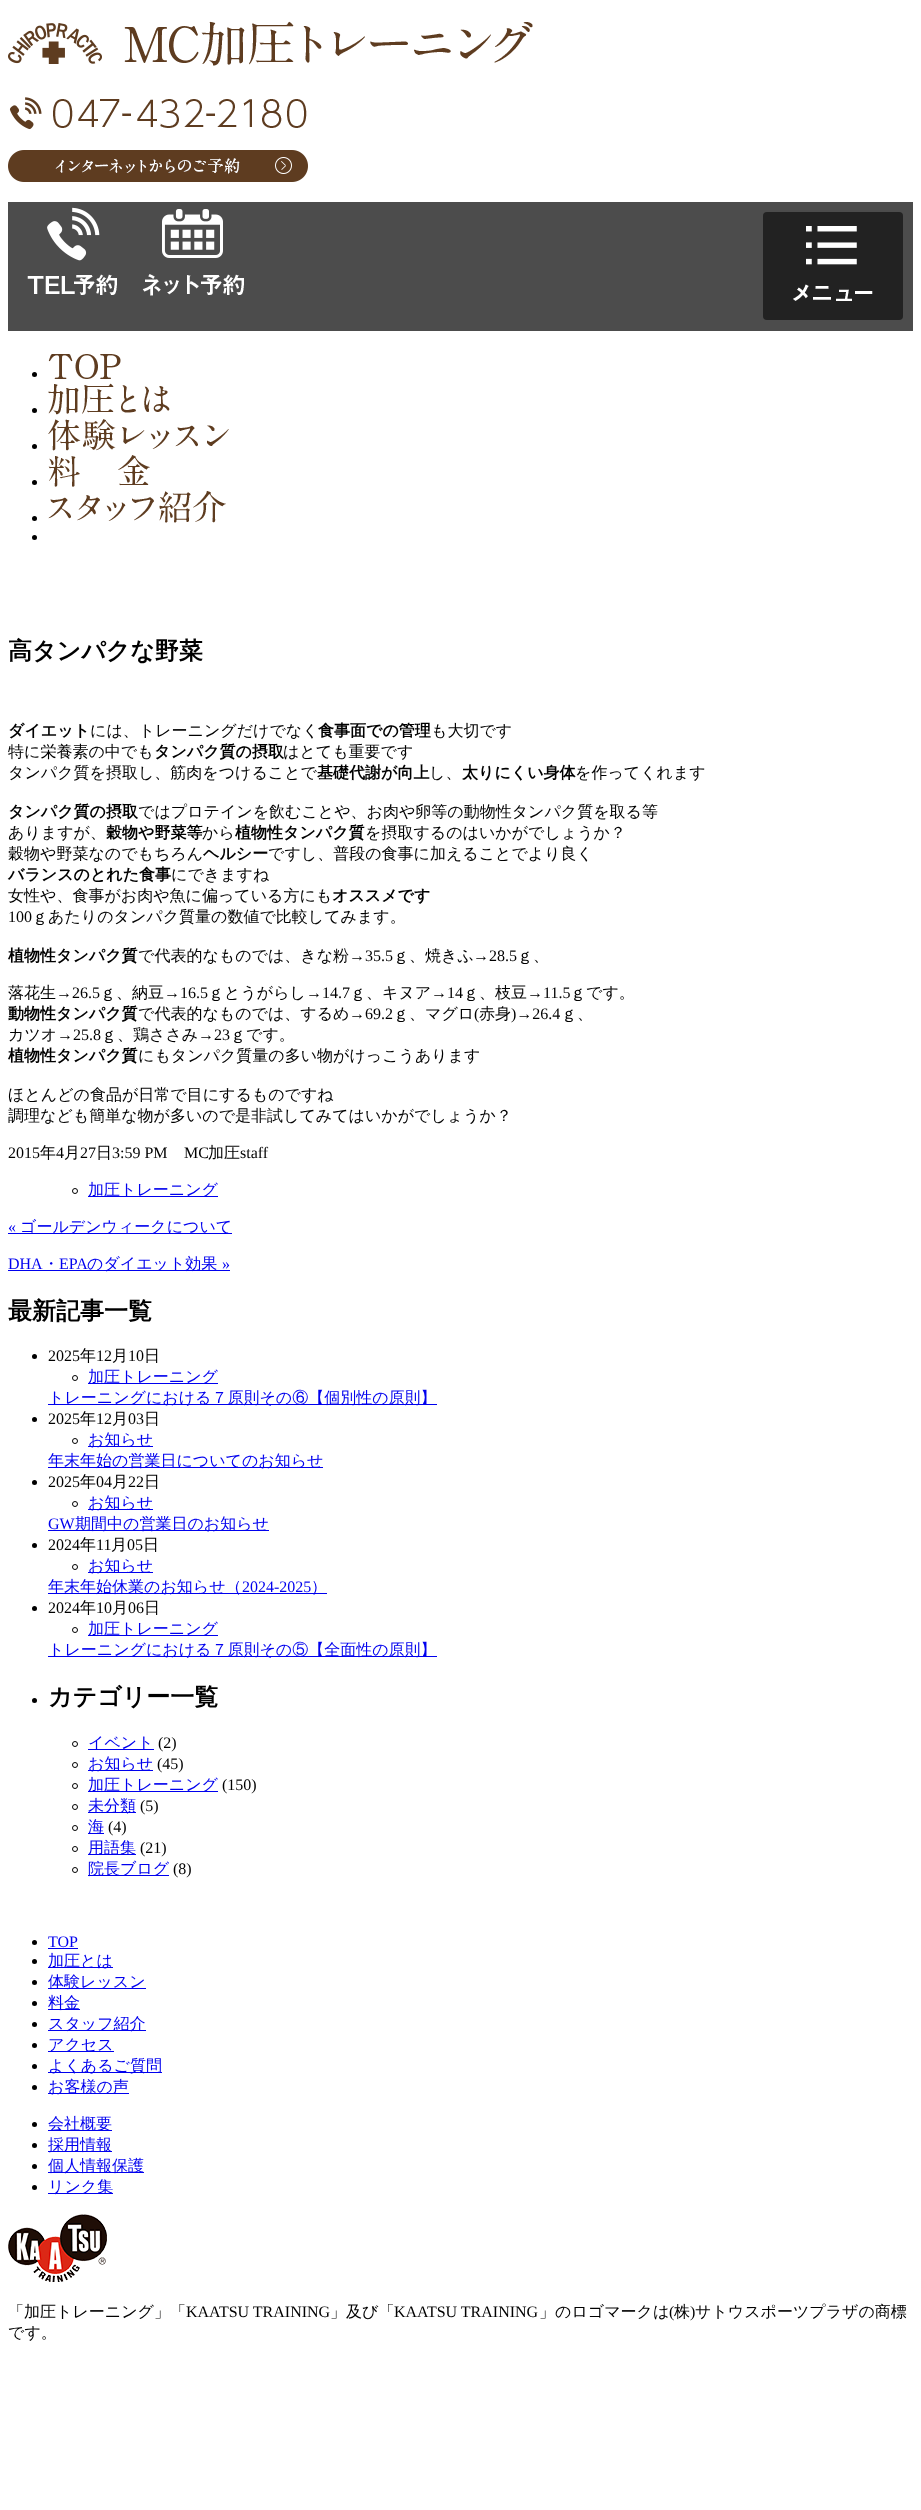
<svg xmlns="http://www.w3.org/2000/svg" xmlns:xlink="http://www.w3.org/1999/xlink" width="921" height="2510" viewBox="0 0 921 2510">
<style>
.cls-1{font:bold 24px WenQuanYi Zen Hei;fill:#000000}
.cls-2{font:bold 16px WenQuanYi Zen Hei;fill:#000000}
.cls-3{font:500 16px WenQuanYi Zen Hei;fill:#000000}
.cls-4{font:16px Liberation Serif;fill:#000000}
.cls-5{font:500 16px WenQuanYi Zen Hei;fill:#0000ee}
.cls-6{font:16px Liberation Serif;fill:#0000ee}
</style>
<rect width="100%" height="100%" fill="#ffffff"/>
<image xlink:href="image0.png" x="8" y="21" width="525" height="45"/>
<image xlink:href="image1.png" x="9" y="97" width="298" height="33"/>
<image xlink:href="image2.png" x="8" y="150" width="300" height="32"/>
<rect fill="#4c4c4c" x="8" y="202" width="905" height="129"/>
<image xlink:href="image3.png" x="27" y="207" width="90" height="88"/>
<image xlink:href="image4.png" x="142" y="209" width="102" height="87"/>
<rect fill="#222222" x="763" y="212" width="140" height="108" rx="4"/>
<image xlink:href="image5.png" x="793" y="226" width="80" height="75"/>
<circle fill="#000000" cx="34.5" cy="374.5" r="2.5"/>
<image xlink:href="image6.png" x="48" y="354" width="73" height="25"/>
<circle fill="#000000" cx="34.5" cy="410.5" r="2.5"/>
<image xlink:href="image7.png" x="48" y="383" width="122" height="32"/>
<circle fill="#000000" cx="34.5" cy="446.5" r="2.5"/>
<image xlink:href="image8.png" x="48" y="419" width="181" height="32"/>
<circle fill="#000000" cx="34.5" cy="482.5" r="2.5"/>
<image xlink:href="image9.png" x="48" y="455" width="102" height="32"/>
<circle fill="#000000" cx="34.5" cy="518.5" r="2.5"/>
<image xlink:href="image10.png" x="48" y="491" width="178" height="32"/>
<circle fill="#000000" cx="34.5" cy="537.5" r="2.5"/>
<circle fill="none" stroke="#000000" cx="75" cy="1191" r="2.5"/>
<rect fill="#0000ee" x="88" y="1196" width="130" height="1"/>
<rect fill="#0000ee" x="8" y="1233" width="224" height="1"/>
<rect fill="#0000ee" x="8" y="1270" width="222" height="1"/>
<circle fill="#000000" cx="34.5" cy="1356.5" r="2.5"/>
<circle fill="none" stroke="#000000" cx="75" cy="1378" r="2.5"/>
<rect fill="#0000ee" x="88" y="1383" width="130" height="1"/>
<rect fill="#0000ee" x="48" y="1404" width="389" height="1"/>
<circle fill="#000000" cx="34.5" cy="1419.5" r="2.5"/>
<circle fill="none" stroke="#000000" cx="75" cy="1441" r="2.5"/>
<rect fill="#0000ee" x="88" y="1446" width="65" height="1"/>
<rect fill="#0000ee" x="48" y="1467" width="275" height="1"/>
<circle fill="#000000" cx="34.5" cy="1482.5" r="2.5"/>
<circle fill="none" stroke="#000000" cx="75" cy="1504" r="2.5"/>
<rect fill="#0000ee" x="88" y="1509" width="65" height="1"/>
<rect fill="#0000ee" x="48" y="1530" width="221" height="1"/>
<circle fill="#000000" cx="34.5" cy="1545.5" r="2.5"/>
<circle fill="none" stroke="#000000" cx="75" cy="1567" r="2.5"/>
<rect fill="#0000ee" x="88" y="1572" width="65" height="1"/>
<rect fill="#0000ee" x="48" y="1593" width="279" height="1"/>
<circle fill="#000000" cx="34.5" cy="1608.5" r="2.5"/>
<circle fill="none" stroke="#000000" cx="75" cy="1630" r="2.5"/>
<rect fill="#0000ee" x="88" y="1635" width="130" height="1"/>
<rect fill="#0000ee" x="48" y="1656" width="389" height="1"/>
<circle fill="#000000" cx="34.5" cy="1700.5" r="2.5"/>
<circle fill="none" stroke="#000000" cx="75" cy="1744" r="2.5"/>
<rect fill="#0000ee" x="88" y="1749" width="66" height="1"/>
<circle fill="none" stroke="#000000" cx="75" cy="1765" r="2.5"/>
<rect fill="#0000ee" x="88" y="1770" width="65" height="1"/>
<circle fill="none" stroke="#000000" cx="75" cy="1786" r="2.5"/>
<rect fill="#0000ee" x="88" y="1791" width="130" height="1"/>
<circle fill="none" stroke="#000000" cx="75" cy="1807" r="2.5"/>
<rect fill="#0000ee" x="88" y="1812" width="48" height="1"/>
<circle fill="none" stroke="#000000" cx="75" cy="1828" r="2.5"/>
<rect fill="#0000ee" x="88" y="1833" width="16" height="1"/>
<circle fill="none" stroke="#000000" cx="75" cy="1849" r="2.5"/>
<rect fill="#0000ee" x="88" y="1854" width="48" height="1"/>
<circle fill="none" stroke="#000000" cx="75" cy="1870" r="2.5"/>
<rect fill="#0000ee" x="88" y="1875" width="81" height="1"/>
<circle fill="#000000" cx="34.5" cy="1942.5" r="2.5"/>
<rect fill="#0000ee" x="48" y="1948" width="30" height="1"/>
<circle fill="#000000" cx="34.5" cy="1961.5" r="2.5"/>
<rect fill="#0000ee" x="48" y="1967" width="65" height="1"/>
<circle fill="#000000" cx="34.5" cy="1982.5" r="2.5"/>
<rect fill="#0000ee" x="48" y="1988" width="98" height="1"/>
<circle fill="#000000" cx="34.5" cy="2003.5" r="2.5"/>
<rect fill="#0000ee" x="48" y="2009" width="32" height="1"/>
<circle fill="#000000" cx="34.5" cy="2024.5" r="2.5"/>
<rect fill="#0000ee" x="48" y="2030" width="98" height="1"/>
<circle fill="#000000" cx="34.5" cy="2045.5" r="2.5"/>
<rect fill="#0000ee" x="48" y="2051" width="66" height="1"/>
<circle fill="#000000" cx="34.5" cy="2066.5" r="2.5"/>
<rect fill="#0000ee" x="48" y="2072" width="114" height="1"/>
<circle fill="#000000" cx="34.5" cy="2087.5" r="2.5"/>
<rect fill="#0000ee" x="48" y="2093" width="81" height="1"/>
<circle fill="#000000" cx="34.5" cy="2124.5" r="2.5"/>
<rect fill="#0000ee" x="48" y="2130" width="64" height="1"/>
<circle fill="#000000" cx="34.5" cy="2145.5" r="2.5"/>
<rect fill="#0000ee" x="48" y="2151" width="64" height="1"/>
<circle fill="#000000" cx="34.5" cy="2166.5" r="2.5"/>
<rect fill="#0000ee" x="48" y="2172" width="96" height="1"/>
<circle fill="#000000" cx="34.5" cy="2187.5" r="2.5"/>
<rect fill="#0000ee" x="48" y="2193" width="65" height="1"/>
<image xlink:href="image11.png" x="8" y="2214" width="99" height="68"/>
<text class="cls-1" x="8" y="659">高タンパクな野菜</text>
<text class="cls-2" x="8" y="736">ダイエット</text>
<text class="cls-3" x="90" y="736">には、トレーニングだけでなく</text>
<text class="cls-2" x="318" y="736">食事面での管理</text>
<text class="cls-3" x="431" y="736">も大切です</text>
<text class="cls-3" x="8" y="757">特に栄養素の中でも</text>
<text class="cls-2" x="154" y="757">タンパク質の摂取</text>
<text class="cls-3" x="283" y="757">はとても重要です</text>
<text class="cls-3" x="8" y="778">タンパク質を摂取し、筋肉をつけることで</text>
<text class="cls-2" x="317" y="778">基礎代謝が向上</text>
<text class="cls-3" x="429" y="778">し、</text>
<text class="cls-2" x="462" y="778">太りにくい身体</text>
<text class="cls-3" x="575" y="778">を作ってくれます</text>
<text class="cls-2" x="8" y="817">タンパク質の摂取</text>
<text class="cls-3" x="138" y="817">ではプロテインを飲むことや、お肉や卵等の動物性タンパク質を取る等</text>
<text class="cls-3" x="8" y="838">ありますが、</text>
<text class="cls-2" x="106" y="838">穀物や野菜等</text>
<text class="cls-3" x="202" y="838">から</text>
<text class="cls-2" x="235" y="838">植物性タンパク質</text>
<text class="cls-3" x="365" y="838">を摂取するのはいかがでしょうか？</text>
<text class="cls-3" x="8" y="859">穀物や野菜なのでもちろん</text>
<text class="cls-2" x="203" y="859">ヘルシー</text>
<text class="cls-3" x="268" y="859">ですし、普段の食事に加えることでより良く</text>
<text class="cls-2" x="8" y="880">バランスのとれた食事</text>
<text class="cls-3" x="171" y="880">にできますね</text>
<text class="cls-3" x="8" y="901">女性や、食事がお肉や魚に偏っている方にも</text>
<text class="cls-2" x="332" y="901">オススメです</text>
<text class="cls-4" x="8" y="922">100</text>
<text class="cls-3" x="32" y="922">ｇあたりのタンパク質量の数値で比較してみます。</text>
<text class="cls-2" x="8" y="961">植物性タンパク質</text>
<text class="cls-3" x="138" y="961">で代表的なものでは、きな粉</text>
<text class="cls-4" x="349" y="961">→35.5</text>
<text class="cls-3" x="393" y="961">ｇ、焼きふ</text>
<text class="cls-4" x="473" y="961">→28.5</text>
<text class="cls-3" x="517" y="961">ｇ、</text>
<text class="cls-3" x="8" y="998">落花生</text>
<text class="cls-4" x="56" y="998">→26.5</text>
<text class="cls-3" x="100" y="998">ｇ、納豆</text>
<text class="cls-4" x="164" y="998">→16.5</text>
<text class="cls-3" x="208" y="998">ｇとうがらし</text>
<text class="cls-4" x="306" y="998">→14.7</text>
<text class="cls-3" x="350" y="998">ｇ、キヌア</text>
<text class="cls-4" x="431" y="998">→14</text>
<text class="cls-3" x="463" y="998">ｇ、枝豆</text>
<text class="cls-4" x="527" y="998">→11.5</text>
<text class="cls-3" x="570" y="998">ｇです。</text>
<text class="cls-2" x="8" y="1019">動物性タンパク質</text>
<text class="cls-3" x="138" y="1019">で代表的なものでは、するめ</text>
<text class="cls-4" x="349" y="1019">→69.2</text>
<text class="cls-3" x="393" y="1019">ｇ、マグロ</text>
<text class="cls-4" x="474" y="1019">(</text>
<text class="cls-3" x="479" y="1019">赤身</text>
<text class="cls-4" x="511" y="1019">)→26.4</text>
<text class="cls-3" x="561" y="1019">ｇ、</text>
<text class="cls-3" x="8" y="1040">カツオ</text>
<text class="cls-4" x="57" y="1040">→25.8</text>
<text class="cls-3" x="101" y="1040">ｇ、鶏ささみ</text>
<text class="cls-4" x="198" y="1040">→23</text>
<text class="cls-3" x="230" y="1040">ｇです。</text>
<text class="cls-2" x="8" y="1061">植物性タンパク質</text>
<text class="cls-3" x="138" y="1061">にもタンパク質量の多い物がけっこうあります</text>
<text class="cls-3"><tspan x="8" y="1100">ほとんどの食品が日常で目にするものですね</tspan><tspan x="8" y="1121">調理なども簡単な物が多いので是非試してみてはいかがでしょうか？</tspan></text>
<text class="cls-4" x="8" y="1158">2015</text>
<text class="cls-3" x="40" y="1158">年</text>
<text class="cls-4" x="56" y="1158">4</text>
<text class="cls-3" x="64" y="1158">月</text>
<text class="cls-4" x="80" y="1158">27</text>
<text class="cls-3" x="96" y="1158">日</text>
<text class="cls-4" x="112" y="1158">3:59 PM</text>
<text class="cls-4" x="184" y="1158">MC</text>
<text class="cls-3" x="208" y="1158">加圧</text>
<text class="cls-4" x="240" y="1158">staff</text>
<text class="cls-5" x="88" y="1195">加圧トレーニング</text>
<text class="cls-6" x="8" y="1232">«</text>
<text class="cls-5" x="20" y="1232">ゴールデンウィークについて</text>
<text class="cls-6" x="8" y="1269">DHA</text>
<text class="cls-5" x="43" y="1269">・</text>
<text class="cls-6" x="59" y="1269">EPA</text>
<text class="cls-5" x="87" y="1269">のダイエット効果</text>
<text class="cls-6" x="222" y="1269">»</text>
<text class="cls-1" x="8" y="1319">最新記事一覧</text>
<text class="cls-4" x="48" y="1361">2025</text>
<text class="cls-3" x="80" y="1361">年</text>
<text class="cls-4" x="96" y="1361">12</text>
<text class="cls-3" x="112" y="1361">月</text>
<text class="cls-4" x="128" y="1361">10</text>
<text class="cls-3" x="144" y="1361">日</text>
<text class="cls-5" x="88" y="1382">加圧トレーニング</text>
<text class="cls-5" x="48" y="1403">トレーニングにおける７原則その⑥【個別性の原則】</text>
<text class="cls-4" x="48" y="1424">2025</text>
<text class="cls-3" x="80" y="1424">年</text>
<text class="cls-4" x="96" y="1424">12</text>
<text class="cls-3" x="112" y="1424">月</text>
<text class="cls-4" x="128" y="1424">03</text>
<text class="cls-3" x="144" y="1424">日</text>
<text class="cls-5" x="88" y="1445">お知らせ</text>
<text class="cls-5" x="48" y="1466">年末年始の営業日についてのお知らせ</text>
<text class="cls-4" x="48" y="1487">2025</text>
<text class="cls-3" x="80" y="1487">年</text>
<text class="cls-4" x="96" y="1487">04</text>
<text class="cls-3" x="112" y="1487">月</text>
<text class="cls-4" x="128" y="1487">22</text>
<text class="cls-3" x="144" y="1487">日</text>
<text class="cls-5" x="88" y="1508">お知らせ</text>
<text class="cls-6" x="48" y="1529">GW</text>
<text class="cls-5" x="75" y="1529">期間中の営業日のお知らせ</text>
<text class="cls-4" x="48" y="1550">2024</text>
<text class="cls-3" x="80" y="1550">年</text>
<text class="cls-4" x="96" y="1550">11</text>
<text class="cls-3" x="111" y="1550">月</text>
<text class="cls-4" x="127" y="1550">05</text>
<text class="cls-3" x="143" y="1550">日</text>
<text class="cls-5" x="88" y="1571">お知らせ</text>
<text class="cls-5" x="48" y="1592">年末年始休業のお知らせ（</text>
<text class="cls-6" x="242" y="1592">2024-2025</text>
<text class="cls-5" x="311" y="1592">）</text>
<text class="cls-4" x="48" y="1613">2024</text>
<text class="cls-3" x="80" y="1613">年</text>
<text class="cls-4" x="96" y="1613">10</text>
<text class="cls-3" x="112" y="1613">月</text>
<text class="cls-4" x="128" y="1613">06</text>
<text class="cls-3" x="144" y="1613">日</text>
<text class="cls-5" x="88" y="1634">加圧トレーニング</text>
<text class="cls-5" x="48" y="1655">トレーニングにおける７原則その⑤【全面性の原則】</text>
<text class="cls-1" x="48" y="1705">カテゴリー一覧</text>
<text class="cls-5" x="88" y="1748">イベント</text>
<text class="cls-4" x="158" y="1748">(2)</text>
<text class="cls-5" x="88" y="1769">お知らせ</text>
<text class="cls-4" x="157" y="1769">(45)</text>
<text class="cls-5" x="88" y="1790">加圧トレーニング</text>
<text class="cls-4" x="222" y="1790">(150)</text>
<text class="cls-5" x="88" y="1811">未分類</text>
<text class="cls-4" x="140" y="1811">(5)</text>
<text class="cls-5" x="88" y="1832">海</text>
<text class="cls-4" x="108" y="1832">(4)</text>
<text class="cls-5" x="88" y="1853">用語集</text>
<text class="cls-4" x="140" y="1853">(21)</text>
<text class="cls-5" x="88" y="1874">院長ブログ</text>
<text class="cls-4" x="173" y="1874">(8)</text>
<text class="cls-6" x="48" y="1947">TOP</text>
<text class="cls-5"><tspan x="48" y="1966">加圧とは</tspan><tspan x="48" y="1987">体験レッスン</tspan><tspan x="48" y="2008">料金</tspan><tspan x="48" y="2029">スタッフ紹介</tspan><tspan x="48" y="2050">アクセス</tspan><tspan x="48" y="2071">よくあるご質問</tspan><tspan x="48" y="2092">お客様の声</tspan></text>
<text class="cls-5"><tspan x="48" y="2129">会社概要</tspan><tspan x="48" y="2150">採用情報</tspan><tspan x="48" y="2171">個人情報保護</tspan><tspan x="48" y="2192">リンク集</tspan></text>
<text class="cls-3" x="8" y="2317">「加圧トレーニング」「</text>
<text class="cls-4" x="186" y="2317">KAATSU TRAINING</text>
<text class="cls-3" x="330" y="2317">」及び「</text>
<text class="cls-4" x="394" y="2317">KAATSU TRAINING</text>
<text class="cls-3" x="539" y="2317">」のロゴマークは</text>
<text class="cls-4" x="669" y="2317">(</text>
<text class="cls-3" x="674" y="2317">株</text>
<text class="cls-4" x="690" y="2317">)</text>
<text class="cls-3" x="695" y="2317">サトウスポーツプラザの商標</text>
<text class="cls-3" x="8" y="2338">です。</text>
</svg>
